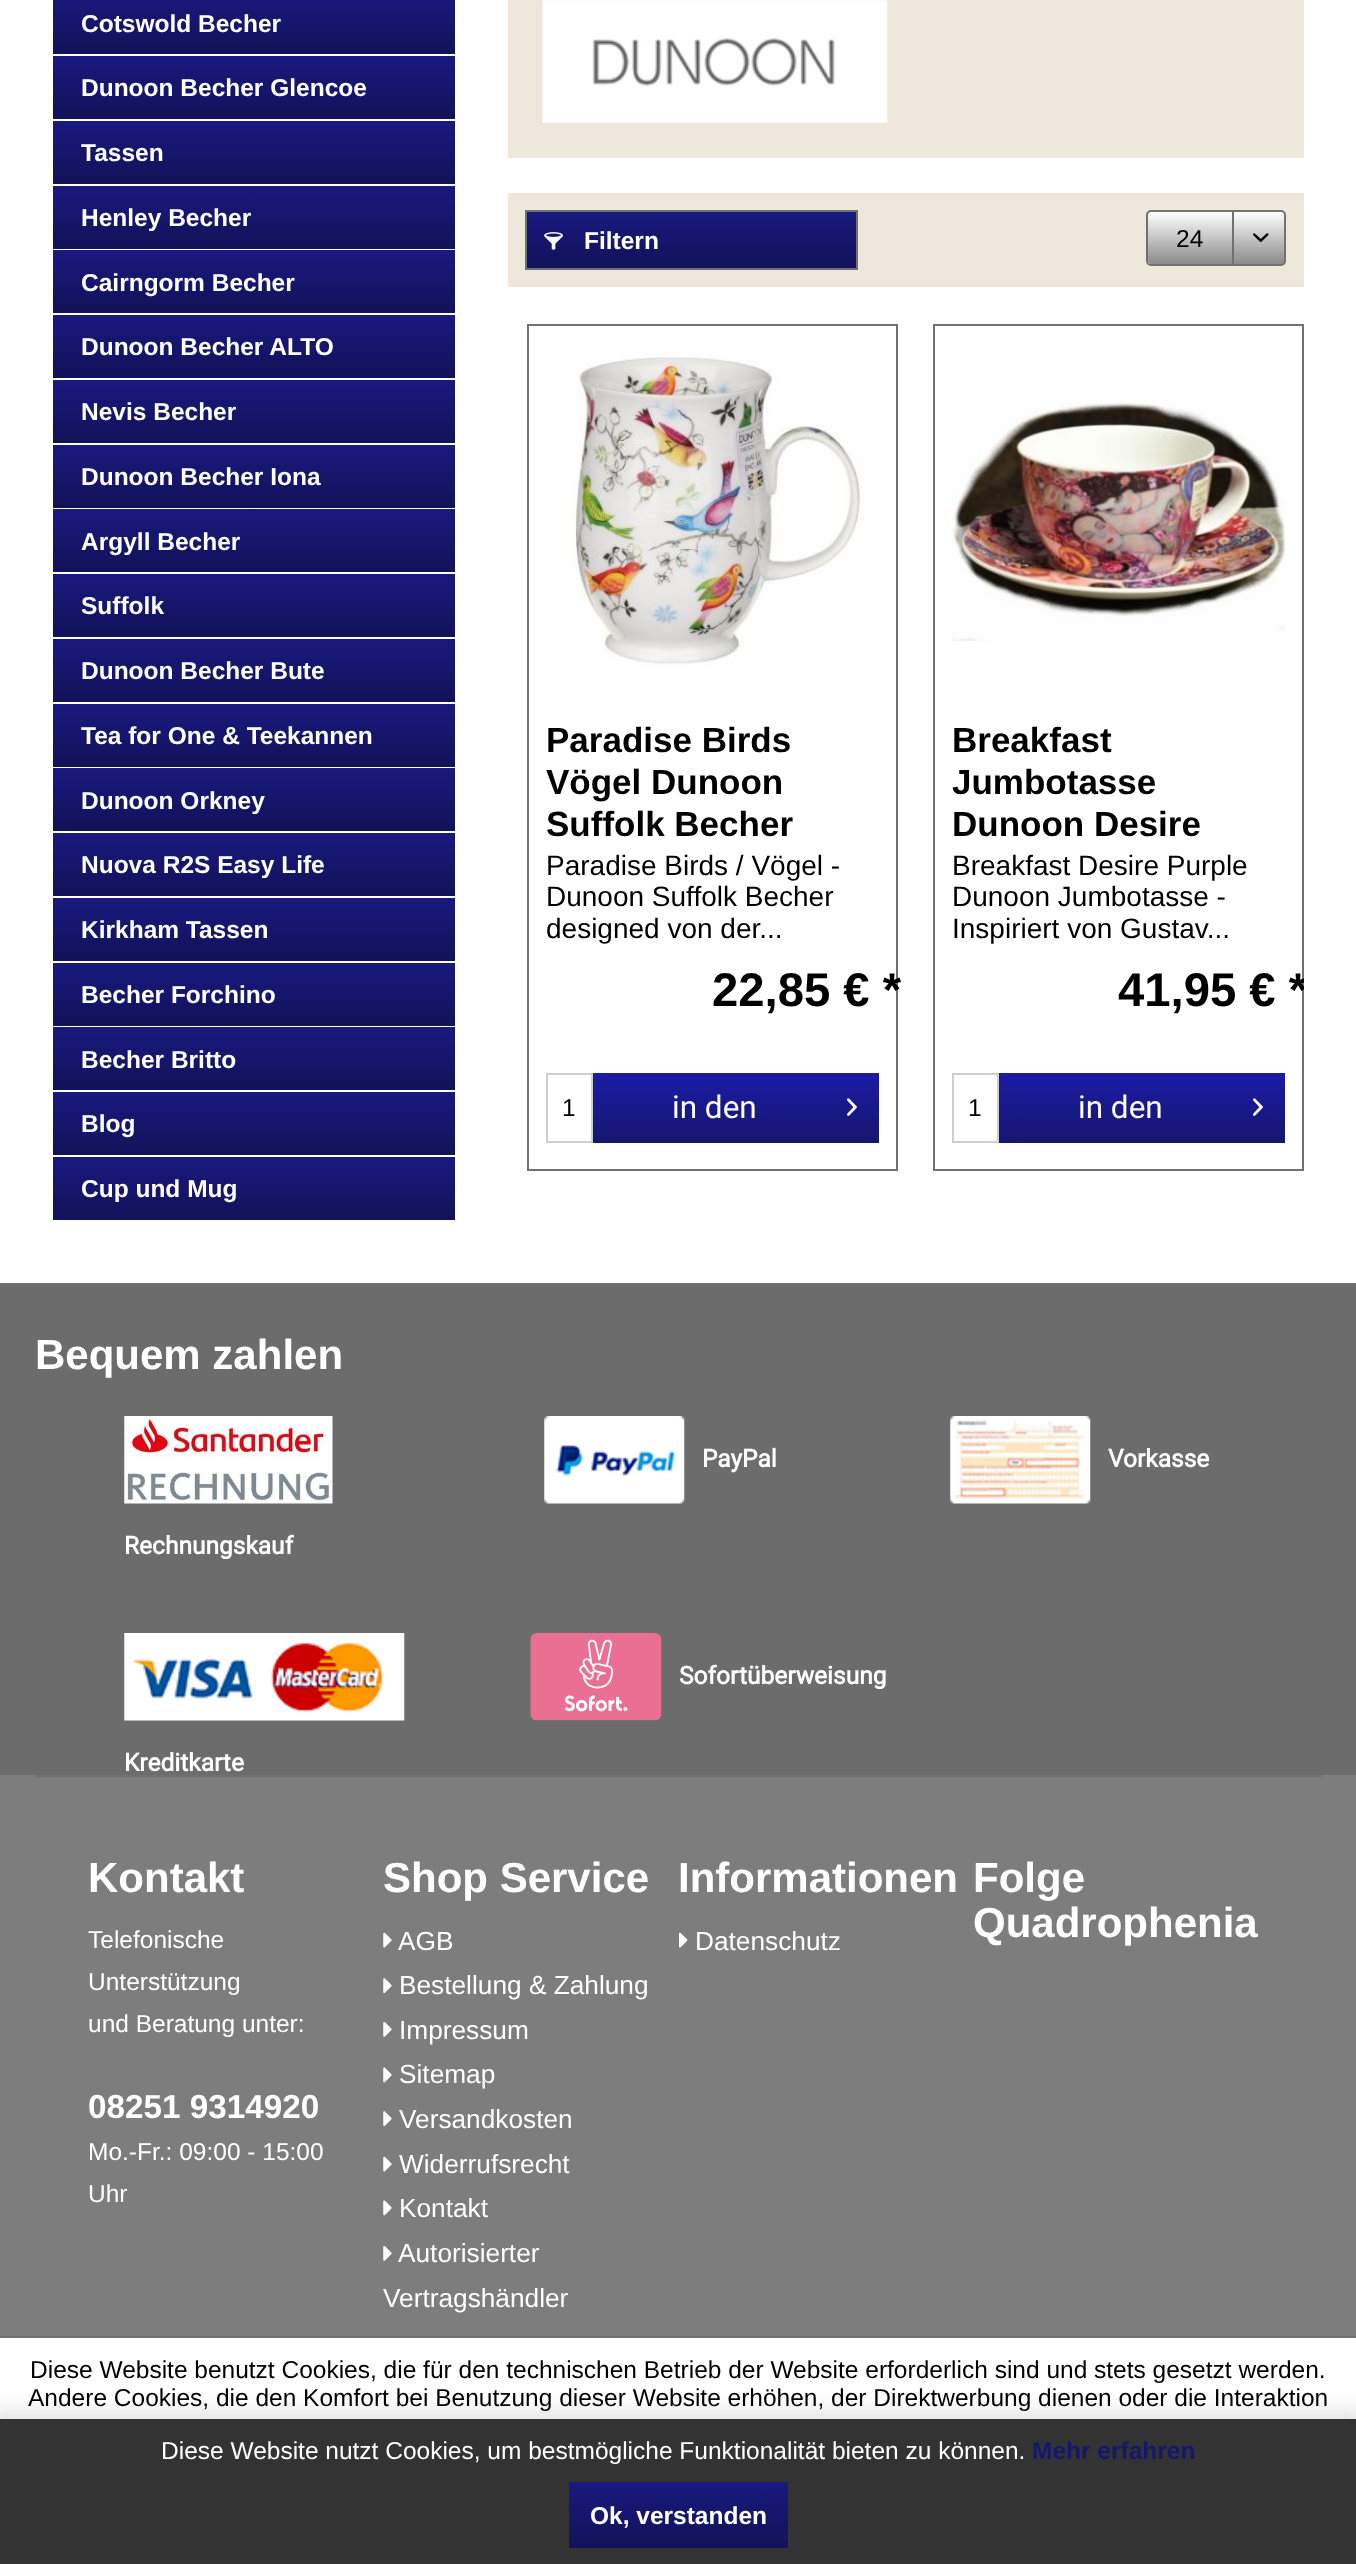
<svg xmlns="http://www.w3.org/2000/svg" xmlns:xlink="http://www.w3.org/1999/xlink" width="1356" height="2564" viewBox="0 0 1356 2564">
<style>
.cls-1{font:bold 24.5px Liberation Sans;fill:#ffffff}
.cls-2{font:24.5px Liberation Sans;fill:#000000}
.cls-3{font:bold 35px Liberation Sans;fill:#000000}
.cls-4{font:28px Liberation Sans;fill:#000000}
.cls-5{font:bold 47.25px Liberation Sans;fill:#000000}
.cls-6{font:31.5px Roboto;fill:#ffffff}
.cls-7{font:bold 42px Liberation Sans;fill:#ffffff}
.cls-8{font:bold 24.5px Roboto;fill:#ffffff}
.cls-9{font:24.5px Liberation Sans;fill:#ffffff}
.cls-10{font:bold 33.25px Liberation Sans;fill:#ffffff}
.cls-11{font:26.25px Liberation Sans;fill:#ffffff}
.cls-12{font:bold 24.5px Liberation Sans;fill:#16166e}
</style>
<defs>
<linearGradient id="g1" gradientUnits="userSpaceOnUse" x1="254" y1="-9" x2="254" y2="54"><stop offset="0" stop-color="#19197f"/><stop offset="1" stop-color="#121259"/></linearGradient>
<linearGradient id="g2" gradientUnits="userSpaceOnUse" x1="254" y1="56" x2="254" y2="119"><stop offset="0" stop-color="#19197f"/><stop offset="1" stop-color="#121259"/></linearGradient>
<linearGradient id="g3" gradientUnits="userSpaceOnUse" x1="254" y1="121" x2="254" y2="184"><stop offset="0" stop-color="#19197f"/><stop offset="1" stop-color="#121259"/></linearGradient>
<linearGradient id="g4" gradientUnits="userSpaceOnUse" x1="254" y1="185" x2="254" y2="249"><stop offset="0" stop-color="#19197f"/><stop offset="1" stop-color="#121259"/></linearGradient>
<linearGradient id="g5" gradientUnits="userSpaceOnUse" x1="254" y1="250" x2="254" y2="313"><stop offset="0" stop-color="#19197f"/><stop offset="1" stop-color="#121259"/></linearGradient>
<linearGradient id="g6" gradientUnits="userSpaceOnUse" x1="254" y1="315" x2="254" y2="378"><stop offset="0" stop-color="#19197f"/><stop offset="1" stop-color="#121259"/></linearGradient>
<linearGradient id="g7" gradientUnits="userSpaceOnUse" x1="254" y1="380" x2="254" y2="443"><stop offset="0" stop-color="#19197f"/><stop offset="1" stop-color="#121259"/></linearGradient>
<linearGradient id="g8" gradientUnits="userSpaceOnUse" x1="254" y1="445" x2="254" y2="508"><stop offset="0" stop-color="#19197f"/><stop offset="1" stop-color="#121259"/></linearGradient>
<linearGradient id="g9" gradientUnits="userSpaceOnUse" x1="254" y1="509" x2="254" y2="572"><stop offset="0" stop-color="#19197f"/><stop offset="1" stop-color="#121259"/></linearGradient>
<linearGradient id="g10" gradientUnits="userSpaceOnUse" x1="254" y1="574" x2="254" y2="637"><stop offset="0" stop-color="#19197f"/><stop offset="1" stop-color="#121259"/></linearGradient>
<linearGradient id="g11" gradientUnits="userSpaceOnUse" x1="254" y1="639" x2="254" y2="702"><stop offset="0" stop-color="#19197f"/><stop offset="1" stop-color="#121259"/></linearGradient>
<linearGradient id="g12" gradientUnits="userSpaceOnUse" x1="254" y1="704" x2="254" y2="767"><stop offset="0" stop-color="#19197f"/><stop offset="1" stop-color="#121259"/></linearGradient>
<linearGradient id="g13" gradientUnits="userSpaceOnUse" x1="254" y1="768" x2="254" y2="831"><stop offset="0" stop-color="#19197f"/><stop offset="1" stop-color="#121259"/></linearGradient>
<linearGradient id="g14" gradientUnits="userSpaceOnUse" x1="254" y1="833" x2="254" y2="896"><stop offset="0" stop-color="#19197f"/><stop offset="1" stop-color="#121259"/></linearGradient>
<linearGradient id="g15" gradientUnits="userSpaceOnUse" x1="254" y1="898" x2="254" y2="961"><stop offset="0" stop-color="#19197f"/><stop offset="1" stop-color="#121259"/></linearGradient>
<linearGradient id="g16" gradientUnits="userSpaceOnUse" x1="254" y1="963" x2="254" y2="1026"><stop offset="0" stop-color="#19197f"/><stop offset="1" stop-color="#121259"/></linearGradient>
<linearGradient id="g17" gradientUnits="userSpaceOnUse" x1="254" y1="1027" x2="254" y2="1090"><stop offset="0" stop-color="#19197f"/><stop offset="1" stop-color="#121259"/></linearGradient>
<linearGradient id="g18" gradientUnits="userSpaceOnUse" x1="254" y1="1092" x2="254" y2="1155"><stop offset="0" stop-color="#19197f"/><stop offset="1" stop-color="#121259"/></linearGradient>
<linearGradient id="g19" gradientUnits="userSpaceOnUse" x1="254" y1="1157" x2="254" y2="1220"><stop offset="0" stop-color="#19197f"/><stop offset="1" stop-color="#121259"/></linearGradient>
<linearGradient id="g20" gradientUnits="userSpaceOnUse" x1="691" y1="212" x2="691" y2="268"><stop offset="0" stop-color="#19197f"/><stop offset="1" stop-color="#121259"/></linearGradient>
<linearGradient id="g21" gradientUnits="userSpaceOnUse" x1="1216" y1="212" x2="1216" y2="264"><stop offset="0" stop-color="#ffffff"/><stop offset="1" stop-color="#8a8a8a"/></linearGradient>
<linearGradient id="g22" gradientUnits="userSpaceOnUse" x1="736" y1="1073" x2="736" y2="1143"><stop offset="0" stop-color="#1b1ba6"/><stop offset="1" stop-color="#16166e"/></linearGradient>
<linearGradient id="g23" gradientUnits="userSpaceOnUse" x1="1142" y1="1073" x2="1142" y2="1143"><stop offset="0" stop-color="#1b1ba6"/><stop offset="1" stop-color="#16166e"/></linearGradient>
<linearGradient id="g24" gradientUnits="userSpaceOnUse" x1="678" y1="2482" x2="678" y2="2548"><stop offset="0" stop-color="#19197f"/><stop offset="1" stop-color="#121259"/></linearGradient>
<clipPath id="clip1"><rect x="508" y="305" width="796" height="882"/></clipPath>
</defs>
<rect width="100%" height="100%" fill="#ffffff"/>
<rect fill="url(#g1)" x="53" y="0" width="402" height="54"/>
<rect fill="url(#g2)" x="53" y="56" width="402" height="63"/>
<rect fill="url(#g3)" x="53" y="121" width="402" height="63"/>
<rect fill="url(#g4)" x="53" y="186" width="402" height="63"/>
<rect fill="url(#g5)" x="53" y="250" width="402" height="63"/>
<rect fill="url(#g6)" x="53" y="315" width="402" height="63"/>
<rect fill="url(#g7)" x="53" y="380" width="402" height="63"/>
<rect fill="url(#g8)" x="53" y="445" width="402" height="63"/>
<rect fill="url(#g9)" x="53" y="509" width="402" height="63"/>
<rect fill="url(#g10)" x="53" y="574" width="402" height="63"/>
<rect fill="url(#g11)" x="53" y="639" width="402" height="63"/>
<rect fill="url(#g12)" x="53" y="704" width="402" height="63"/>
<rect fill="url(#g13)" x="53" y="768" width="402" height="63"/>
<rect fill="url(#g14)" x="53" y="833" width="402" height="63"/>
<rect fill="url(#g15)" x="53" y="898" width="402" height="63"/>
<rect fill="url(#g16)" x="53" y="963" width="402" height="63"/>
<rect fill="url(#g17)" x="53" y="1027" width="402" height="63"/>
<rect fill="url(#g18)" x="53" y="1092" width="402" height="63"/>
<rect fill="url(#g19)" x="53" y="1157" width="402" height="63"/>
<rect fill="#eee8dc" x="508" y="0" width="796" height="158"/>
<image xlink:href="image0.png" x="542" y="0" width="346" height="123"/>
<rect fill="#eee8dc" x="508" y="193" width="796" height="94"/>
<rect fill="url(#g20)" x="527" y="212" width="329" height="56"/>
<rect fill="none" stroke="#717171" stroke-width="2" x="526" y="211" width="331" height="58"/>
<image xlink:href="image1.png" x="544" y="232" width="19" height="18"/>
<image xlink:href="image2.png" x="823" y="244" width="3" height="1"/>
<rect fill="url(#g21)" x="1148" y="212" width="137" height="52" rx="4"/>
<rect fill="none" stroke="#717171" stroke-width="2" x="1147" y="211" width="138" height="54" rx="4"/>
<rect fill="#717171" x="1232" y="212" width="2" height="54"/>
<image xlink:href="image3.png" x="1253" y="233" width="16" height="9"/>
<rect fill="none" stroke="#717171" stroke-width="2" x="528" y="325" width="369" height="845"/>
<image xlink:href="image4.png" x="571" y="357" width="291" height="308"/>
<rect fill="none" stroke="#cdcdcd" stroke-width="2" x="547" y="1074" width="45" height="68"/>
<rect fill="url(#g22)" x="593" y="1073" width="286" height="70"/>
<image xlink:href="image5.png" x="847" y="1098" width="10" height="18"/>
<rect fill="none" stroke="#717171" stroke-width="2" x="934" y="325" width="369" height="845"/>
<image xlink:href="image6.png" x="952" y="402" width="333" height="239"/>
<rect fill="none" stroke="#cdcdcd" stroke-width="2" x="953" y="1074" width="45" height="68"/>
<rect fill="url(#g23)" x="999" y="1073" width="286" height="70"/>
<image xlink:href="image5.png" x="1253" y="1098" width="10" height="18"/>
<rect fill="#7d7d7d" x="0" y="1775" width="1356" height="561"/>
<rect fill="#717171" x="0" y="1283" width="1356" height="2"/>
<rect fill="#6c6c6c" x="0" y="1285" width="1356" height="490"/>
<image xlink:href="image7.png" x="544" y="1416" width="141" height="88"/>
<image xlink:href="image8.png" x="950" y="1416" width="141" height="88"/>
<image xlink:href="image9.png" x="124" y="1416" width="209" height="88"/>
<image xlink:href="image10.png" x="530" y="1633" width="132" height="88"/>
<image xlink:href="image11.png" x="124" y="1633" width="281" height="88"/>
<rect fill="#717171" x="35" y="1775" width="1286" height="2"/>
<image xlink:href="image12.png" x="383" y="1932" width="9" height="16"/>
<image xlink:href="image13.png" x="383" y="1978" width="9" height="16"/>
<image xlink:href="image14.png" x="383" y="2021" width="9" height="16"/>
<image xlink:href="image15.png" x="383" y="2067" width="9" height="16"/>
<image xlink:href="image13.png" x="383" y="2111" width="9" height="16"/>
<image xlink:href="image12.png" x="383" y="2156" width="9" height="16"/>
<image xlink:href="image15.png" x="383" y="2200" width="9" height="16"/>
<image xlink:href="image14.png" x="383" y="2245" width="9" height="16"/>
<image xlink:href="image16.png" x="679" y="1932" width="9" height="16"/>
<rect fill="#717171" x="0" y="2336" width="1356" height="2"/>
<rect fill="#000000" fill-opacity="0.1" filter="blur(9px)" x="-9" y="2410" width="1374" height="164"/>
<rect fill="#333333" x="0" y="2419" width="1356" height="145"/>
<rect fill="url(#g24)" x="569" y="2482" width="219" height="66"/>
<text class="cls-1" x="81" y="32">Cotswold Becher</text>
<text class="cls-1" x="81" y="96">Dunoon Becher Glencoe</text>
<text class="cls-1" x="81" y="161">Tassen</text>
<text class="cls-1" x="81" y="226">Henley Becher</text>
<text class="cls-1" x="81" y="291">Cairngorm Becher</text>
<text class="cls-1" x="81" y="355">Dunoon Becher ALTO</text>
<text class="cls-1" x="81" y="420">Nevis Becher</text>
<text class="cls-1" x="81" y="485">Dunoon Becher Iona</text>
<text class="cls-1" x="81" y="550">Argyll Becher</text>
<text class="cls-1" x="81" y="614">Suffolk</text>
<text class="cls-1" x="81" y="679">Dunoon Becher Bute</text>
<text class="cls-1" x="81" y="744">Tea for One &amp; Teekannen</text>
<text class="cls-1" x="81" y="809">Dunoon Orkney</text>
<text class="cls-1" x="81" y="873">Nuova R2S Easy Life</text>
<text class="cls-1" x="81" y="938">Kirkham Tassen</text>
<text class="cls-1" x="81" y="1003">Becher Forchino</text>
<text class="cls-1" x="81" y="1068">Becher Britto</text>
<text class="cls-1" x="81" y="1132">Blog</text>
<text class="cls-1" x="81" y="1197">Cup und Mug</text>
<text class="cls-1" x="584" y="249">Filtern</text>
<text class="cls-2" x="1176" y="247">24</text>
<text class="cls-3"><tspan x="546" y="752">Paradise Birds</tspan><tspan x="546" y="794">Vögel Dunoon</tspan><tspan x="546" y="836">Suffolk Becher</tspan></text>
<text class="cls-4"><tspan x="546" y="875">Paradise Birds / Vögel -</tspan><tspan x="546" y="906">Dunoon Suffolk Becher</tspan><tspan x="546" y="938">designed von der...</tspan></text>
<text class="cls-5" x="712" y="1006">22,85 € *</text>
<text class="cls-2" x="562" y="1116">1</text>
<text class="cls-6" x="672" y="1118">in den</text>
<text class="cls-3"><tspan x="952" y="752">Breakfast</tspan><tspan x="952" y="794">Jumbotasse</tspan><tspan x="952" y="836">Dunoon Desire</tspan></text>
<text class="cls-4"><tspan x="952" y="875">Breakfast Desire Purple</tspan><tspan x="952" y="906">Dunoon Jumbotasse -</tspan><tspan x="952" y="938">Inspiriert von Gustav...</tspan></text>
<g clip-path="url(#clip1)">
<text class="cls-5" x="1118" y="1006">41,95 € *</text>
</g>
<text class="cls-2" x="968" y="1116">1</text>
<text class="cls-6" x="1078" y="1118">in den</text>
<text class="cls-7" x="35" y="1369">Bequem zahlen</text>
<text class="cls-8" x="702" y="1467">PayPal</text>
<text class="cls-8" x="1108" y="1467">Vorkasse</text>
<text class="cls-8" x="124" y="1554">Rechnungskauf</text>
<text class="cls-8" x="679" y="1684">Sofortüberweisung</text>
<text class="cls-8" x="124" y="1771">Kreditkarte</text>
<text class="cls-7" x="88" y="1892">Kontakt</text>
<text class="cls-9"><tspan x="88" y="1948">Telefonische</tspan><tspan x="88" y="1990">Unterstützung</tspan><tspan x="88" y="2032">und Beratung unter:</tspan></text>
<text class="cls-10" x="88" y="2118">08251 9314920</text>
<text class="cls-9"><tspan x="88" y="2160">Mo.-Fr.: 09:00 - 15:00</tspan><tspan x="88" y="2202">Uhr</tspan></text>
<text class="cls-7" x="383" y="1892">Shop Service</text>
<text class="cls-11" x="398" y="1950">AGB</text>
<text class="cls-11"><tspan x="399" y="1994">Bestellung &amp; Zahlung</tspan><tspan x="399" y="2039">Impressum</tspan><tspan x="399" y="2083">Sitemap</tspan><tspan x="399" y="2128">Versandkosten</tspan><tspan x="399" y="2173">Widerrufsrecht</tspan><tspan x="399" y="2217">Kontakt</tspan></text>
<text class="cls-11" x="398" y="2262">Autorisierter</text>
<text class="cls-11" x="383" y="2307">Vertragshändler</text>
<text class="cls-7" x="678" y="1892">Informationen</text>
<text class="cls-11" x="695" y="1950">Datenschutz</text>
<text class="cls-7"><tspan x="973" y="1892">Folge</tspan><tspan x="973" y="1937">Quadrophenia</tspan></text>
<text class="cls-2" x="30" y="2378">Diese Website benutzt Cookies, die für den technischen Betrieb der Website erforderlich sind und stets gesetzt werden.</text>
<text class="cls-2" x="28" y="2406">Andere Cookies, die den Komfort bei Benutzung dieser Website erhöhen, der Direktwerbung dienen oder die Interaktion</text>
<text class="cls-9" x="161" y="2459">Diese Website nutzt Cookies, um bestmögliche Funktionalität bieten zu können.</text>
<text class="cls-12" x="1032" y="2459">Mehr erfahren</text>
<text class="cls-1" x="590" y="2524">Ok, verstanden</text>
</svg>
